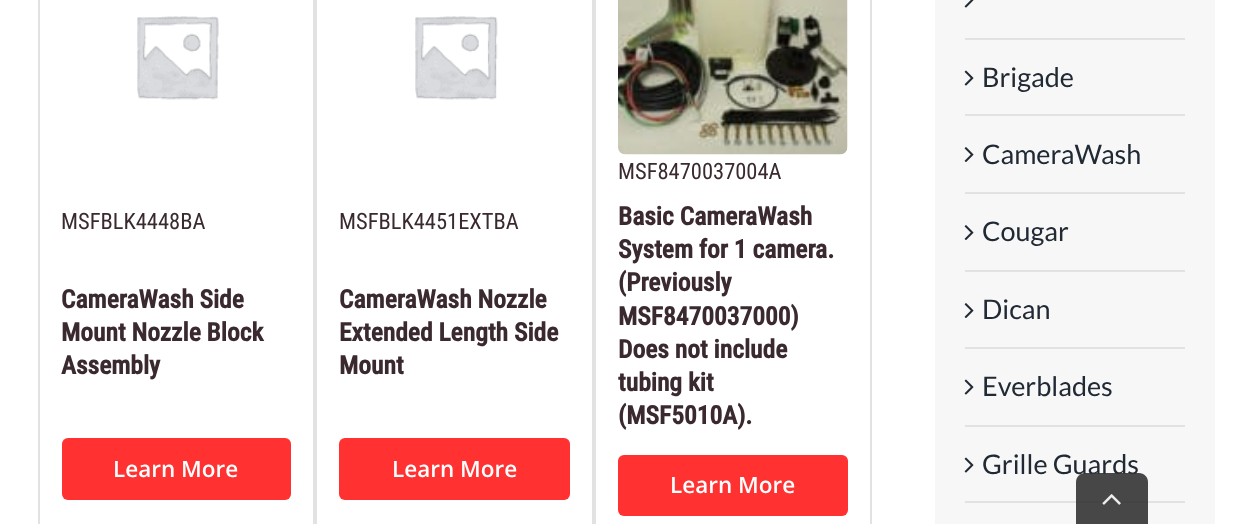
<svg xmlns="http://www.w3.org/2000/svg" xmlns:xlink="http://www.w3.org/1999/xlink" width="1260" height="524" viewBox="0 0 1260 524">
<style>
.cls-1{font:22.5px Roboto Condensed;fill:#3a2a2f}
.cls-2{font:bold 25.5px Roboto Condensed;fill:#3a2a2f}
.cls-3{font:600 22.5px Open Sans;fill:#ffffff}
.cls-4{font:27px Lato;fill:#212934}
</style>
<rect width="100%" height="100%" fill="#ffffff"/>
<rect fill="none" stroke="#e2e2e2" stroke-width="2" x="39" y="-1" width="275" height="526"/>
<image xlink:href="image0.png" x="137" y="16" width="82" height="84"/>
<rect fill="#ff3131" x="62" y="438" width="229" height="62" rx="6"/>
<rect fill="none" stroke="#e2e2e2" stroke-width="2" x="316" y="-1" width="277" height="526"/>
<image xlink:href="image1.png" x="415" y="16" width="83" height="84"/>
<rect fill="#ff3131" x="339" y="438" width="231" height="62" rx="6"/>
<rect fill="none" stroke="#e2e2e2" stroke-width="2" x="595" y="-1" width="276" height="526"/>
<image xlink:href="image2.png" x="618" y="0" width="230" height="155"/>
<rect fill="#ff3131" x="618" y="455" width="230" height="61" rx="6"/>
<rect fill="#f7f7f7" x="935" y="0" width="280" height="524"/>
<rect fill="#e2e2e2" x="965" y="38" width="220" height="2"/>
<image xlink:href="image3.png" x="964" y="0" width="10" height="8"/>
<rect fill="#e2e2e2" x="965" y="114" width="220" height="2"/>
<image xlink:href="image4.png" x="964" y="70" width="10" height="16"/>
<rect fill="#e2e2e2" x="965" y="192" width="220" height="2"/>
<image xlink:href="image5.png" x="964" y="147" width="10" height="15"/>
<rect fill="#e2e2e2" x="965" y="270" width="220" height="2"/>
<image xlink:href="image5.png" x="964" y="225" width="10" height="15"/>
<rect fill="#e2e2e2" x="965" y="347" width="220" height="2"/>
<image xlink:href="image5.png" x="964" y="303" width="10" height="15"/>
<rect fill="#e2e2e2" x="965" y="425" width="220" height="2"/>
<image xlink:href="image4.png" x="964" y="379" width="10" height="16"/>
<rect fill="#e2e2e2" x="965" y="501" width="220" height="2"/>
<image xlink:href="image4.png" x="964" y="457" width="10" height="16"/>
<text class="cls-1" x="61" y="229">MSFBLK4448BA</text>
<text class="cls-2"><tspan x="61" y="308">CameraWash Side</tspan><tspan x="61" y="341">Mount Nozzle Block</tspan><tspan x="61" y="374">Assembly</tspan></text>
<text class="cls-3" x="113" y="477">Learn More</text>
<text class="cls-1" x="339" y="229">MSFBLK4451EXTBA</text>
<text class="cls-2"><tspan x="339" y="308">CameraWash Nozzle</tspan><tspan x="339" y="341">Extended Length Side</tspan><tspan x="339" y="374">Mount</tspan></text>
<text class="cls-3" x="392" y="477">Learn More</text>
<text class="cls-1" x="618" y="179">MSF8470037004A</text>
<text class="cls-2"><tspan x="618" y="225">Basic CameraWash</tspan><tspan x="618" y="258">System for 1 camera.</tspan><tspan x="618" y="291">(Previously</tspan><tspan x="618" y="325">MSF8470037000)</tspan><tspan x="618" y="358">Does not include</tspan><tspan x="618" y="391">tubing kit</tspan><tspan x="618" y="424">(MSF5010A).</tspan></text>
<text class="cls-3" x="670" y="493">Learn More</text>
<text class="cls-4" x="982" y="87">Brigade</text>
<text class="cls-4" x="982" y="164">CameraWash</text>
<text class="cls-4" x="982" y="241">Cougar</text>
<text class="cls-4" x="982" y="319">Dican</text>
<text class="cls-4" x="982" y="396">Everblades</text>
<text class="cls-4" x="982" y="474">Grille Guards</text>
<path fill="#333333" fill-opacity="0.9" d="M1085 473H1139C1144 473 1148 477 1148 482V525H1076V482C1076 477 1080 473 1085 473Z"/>
<image xlink:href="image6.png" x="1102" y="494" width="19" height="11"/>
</svg>
